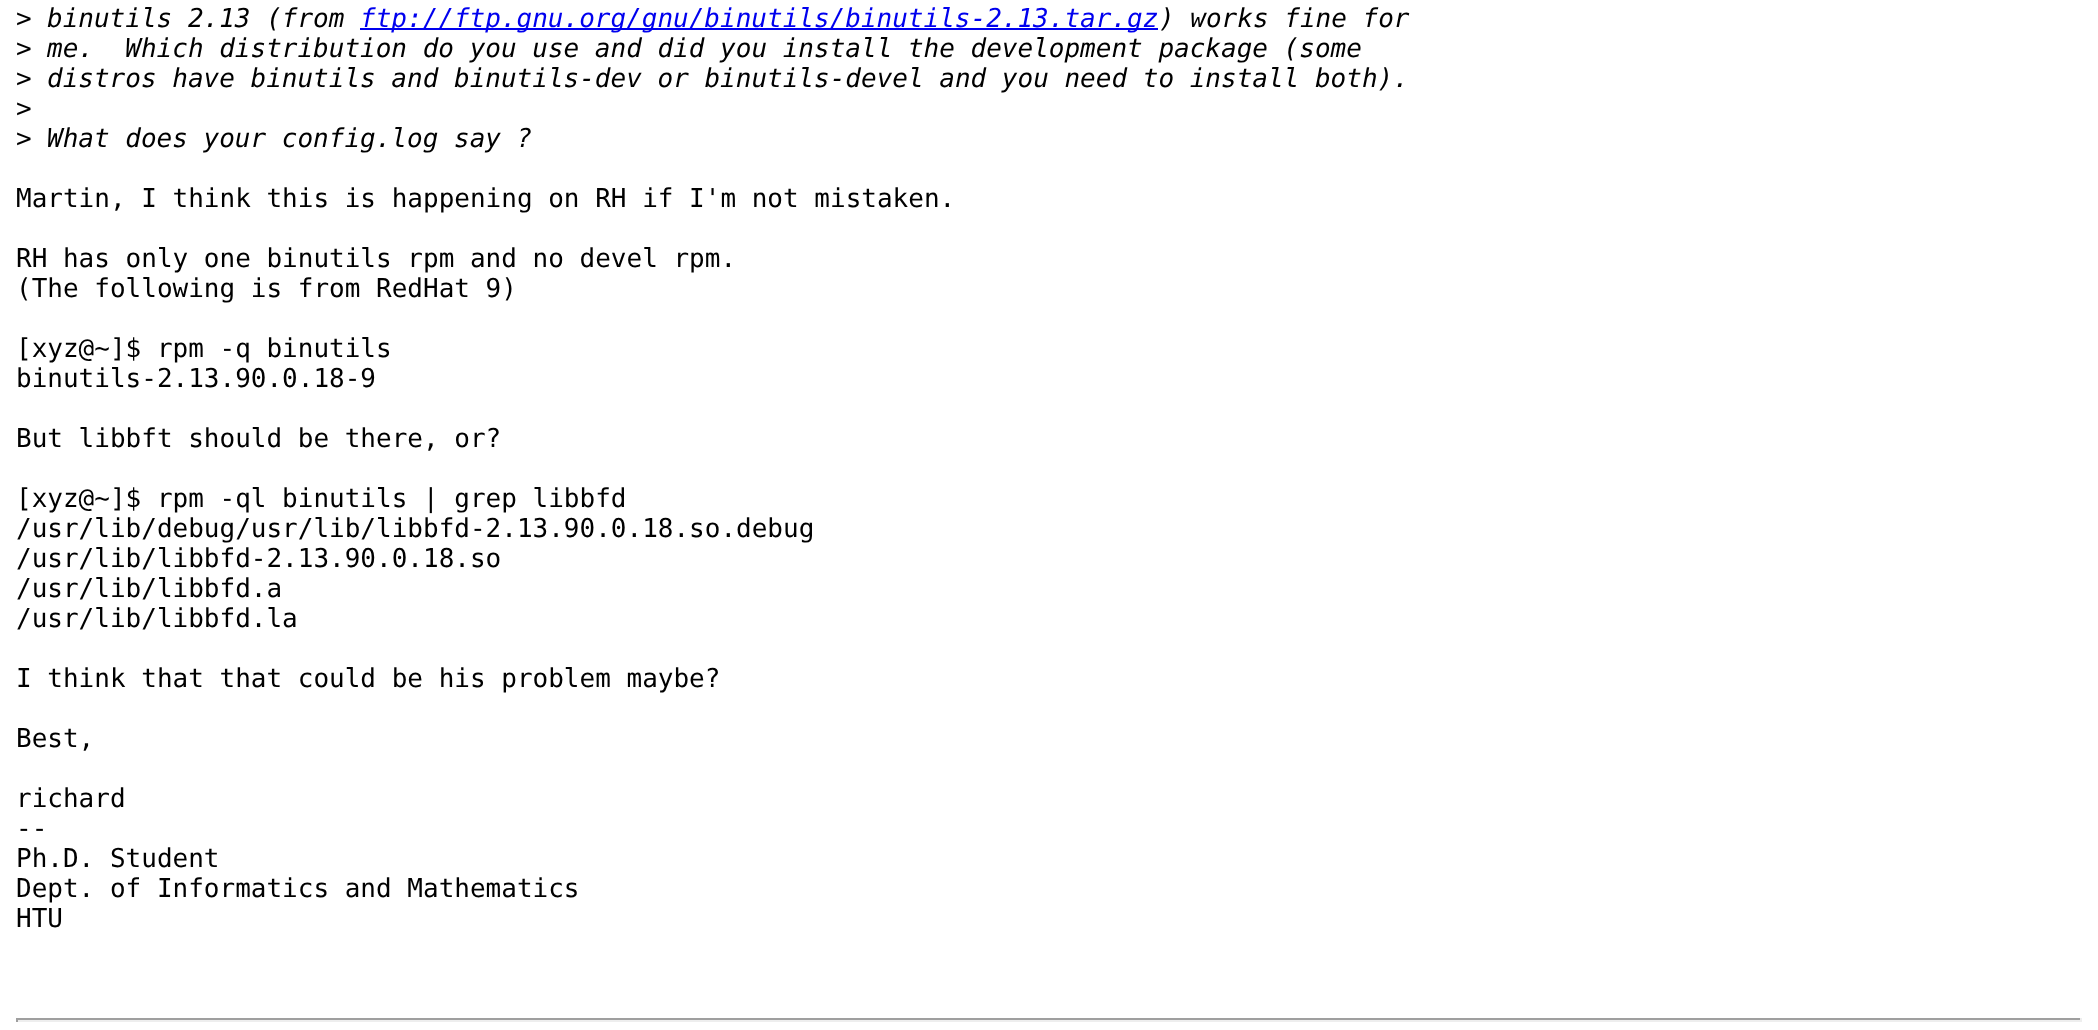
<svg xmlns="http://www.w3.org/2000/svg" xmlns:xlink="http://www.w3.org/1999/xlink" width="2098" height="1030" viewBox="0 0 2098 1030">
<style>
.cls-1{font:26px DejaVu Sans Mono;fill:#000000}
.cls-2{font:italic 26px DejaVu Sans Mono;fill:#000000}
.cls-3{font:italic 26px DejaVu Sans Mono;fill:#0000ee}
</style>
<rect width="100%" height="100%" fill="#ffffff"/>
<rect fill="#0000ee" x="360" y="28" width="798" height="2"/>
<rect fill="#9f9f9f" x="16" y="1018" width="2066" height="2"/>
<rect fill="#eeeeee" x="2080" y="1018" width="2" height="4"/>
<rect fill="#eeeeee" x="16" y="1020" width="2066" height="2"/>
<rect fill="#9f9f9f" x="16" y="1018" width="2" height="4"/>
<text class="cls-1" x="16" y="27">&gt;</text>
<text class="cls-2" x="47" y="27">binutils 2.13 (from</text>
<text class="cls-3" x="360" y="27">ftp://ftp.gnu.org/gnu/binutils/binutils-2.13.tar.gz</text>
<text class="cls-2" x="1159" y="27">) works fine for</text>
<text class="cls-1" x="16" y="57">&gt;</text>
<text class="cls-2" xml:space="preserve" x="47" y="57">me.  Which distribution do you use and did you install the development package (some</text>
<text class="cls-1" x="16" y="87">&gt;</text>
<text class="cls-2" x="47" y="87">distros have binutils and binutils-dev or binutils-devel and you need to install both).</text>
<text class="cls-1"><tspan x="16" y="117">&gt;</tspan><tspan x="16" y="147">&gt;</tspan></text>
<text class="cls-2" x="47" y="147">What does your config.log say ?</text>
<text class="cls-1" x="16" y="207">Martin, I think this is happening on RH if I'm not mistaken.</text>
<text class="cls-1"><tspan x="16" y="267">RH has only one binutils rpm and no devel rpm.</tspan><tspan x="16" y="297">(The following is from RedHat 9)</tspan></text>
<text class="cls-1"><tspan x="16" y="357">[xyz@~]$ rpm -q binutils</tspan><tspan x="16" y="387">binutils-2.13.90.0.18-9</tspan></text>
<text class="cls-1" x="16" y="447">But libbft should be there, or?</text>
<text class="cls-1"><tspan x="16" y="507">[xyz@~]$ rpm -ql binutils | grep libbfd</tspan><tspan x="16" y="537">/usr/lib/debug/usr/lib/libbfd-2.13.90.0.18.so.debug</tspan><tspan x="16" y="567">/usr/lib/libbfd-2.13.90.0.18.so</tspan><tspan x="16" y="597">/usr/lib/libbfd.a</tspan><tspan x="16" y="627">/usr/lib/libbfd.la</tspan></text>
<text class="cls-1" x="16" y="687">I think that that could be his problem maybe?</text>
<text class="cls-1" x="16" y="747">Best,</text>
<text class="cls-1"><tspan x="16" y="807">richard</tspan><tspan x="16" y="837">--</tspan><tspan x="16" y="867">Ph.D. Student</tspan><tspan x="16" y="897">Dept. of Informatics and Mathematics</tspan><tspan x="16" y="927">HTU</tspan></text>
</svg>
